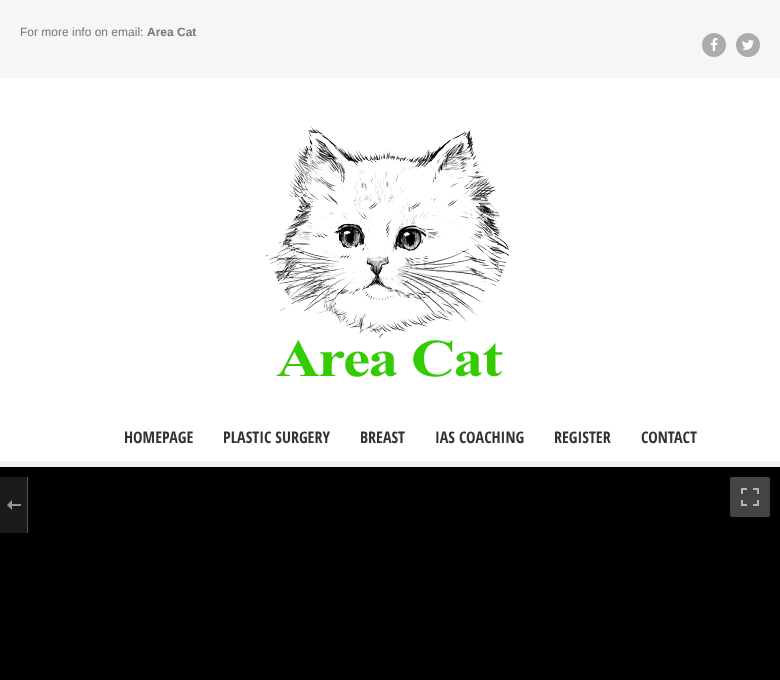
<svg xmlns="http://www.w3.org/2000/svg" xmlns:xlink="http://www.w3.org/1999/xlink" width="780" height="680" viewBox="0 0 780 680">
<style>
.cls-1{font:12px Liberation Sans;fill:#777777}
.cls-2{font:bold 12px Liberation Sans;fill:#777777}
.cls-3{font:bold 16px Open Sans Condensed;fill:#333333}
</style>
<rect width="100%" height="100%" fill="#ffffff"/>
<rect fill="#f2f2f2" x="0" y="461" width="780" height="6"/>
<rect fill="#f6f6f6" x="0" y="0" width="780" height="78"/>
<circle fill="#acacac" cx="714" cy="45" r="12"/>
<image xlink:href="image0.png" x="710" y="38" width="8" height="13"/>
<circle fill="#acacac" cx="748" cy="45" r="12"/>
<image xlink:href="image1.png" x="742" y="40" width="12" height="10"/>
<image xlink:href="image2.png" x="265" y="126" width="245" height="251"/>
<rect fill="#000000" x="0" y="467" width="780" height="213"/>
<rect fill="#1b1b1b" x="0" y="477" width="27" height="56"/>
<rect fill="#525252" x="27" y="477" width="1" height="56"/>
<image xlink:href="image3.png" x="7" y="500" width="14" height="10"/>
<rect fill="#444444" x="730" y="477" width="40" height="40" rx="2"/>
<image xlink:href="image4.png" x="741" y="488" width="18" height="18"/>
<text class="cls-1" x="20" y="36">For more info on email:</text>
<text class="cls-2" x="147" y="36">Area Cat</text>
<text class="cls-3" x="124" y="443">HOMEPAGE</text>
<text class="cls-3" x="223" y="443">PLASTIC SURGERY</text>
<text class="cls-3" x="360" y="443">BREAST</text>
<text class="cls-3" x="435" y="443">IAS COACHING</text>
<text class="cls-3" x="554" y="443">REGISTER</text>
<text class="cls-3" x="641" y="443">CONTACT</text>
</svg>
